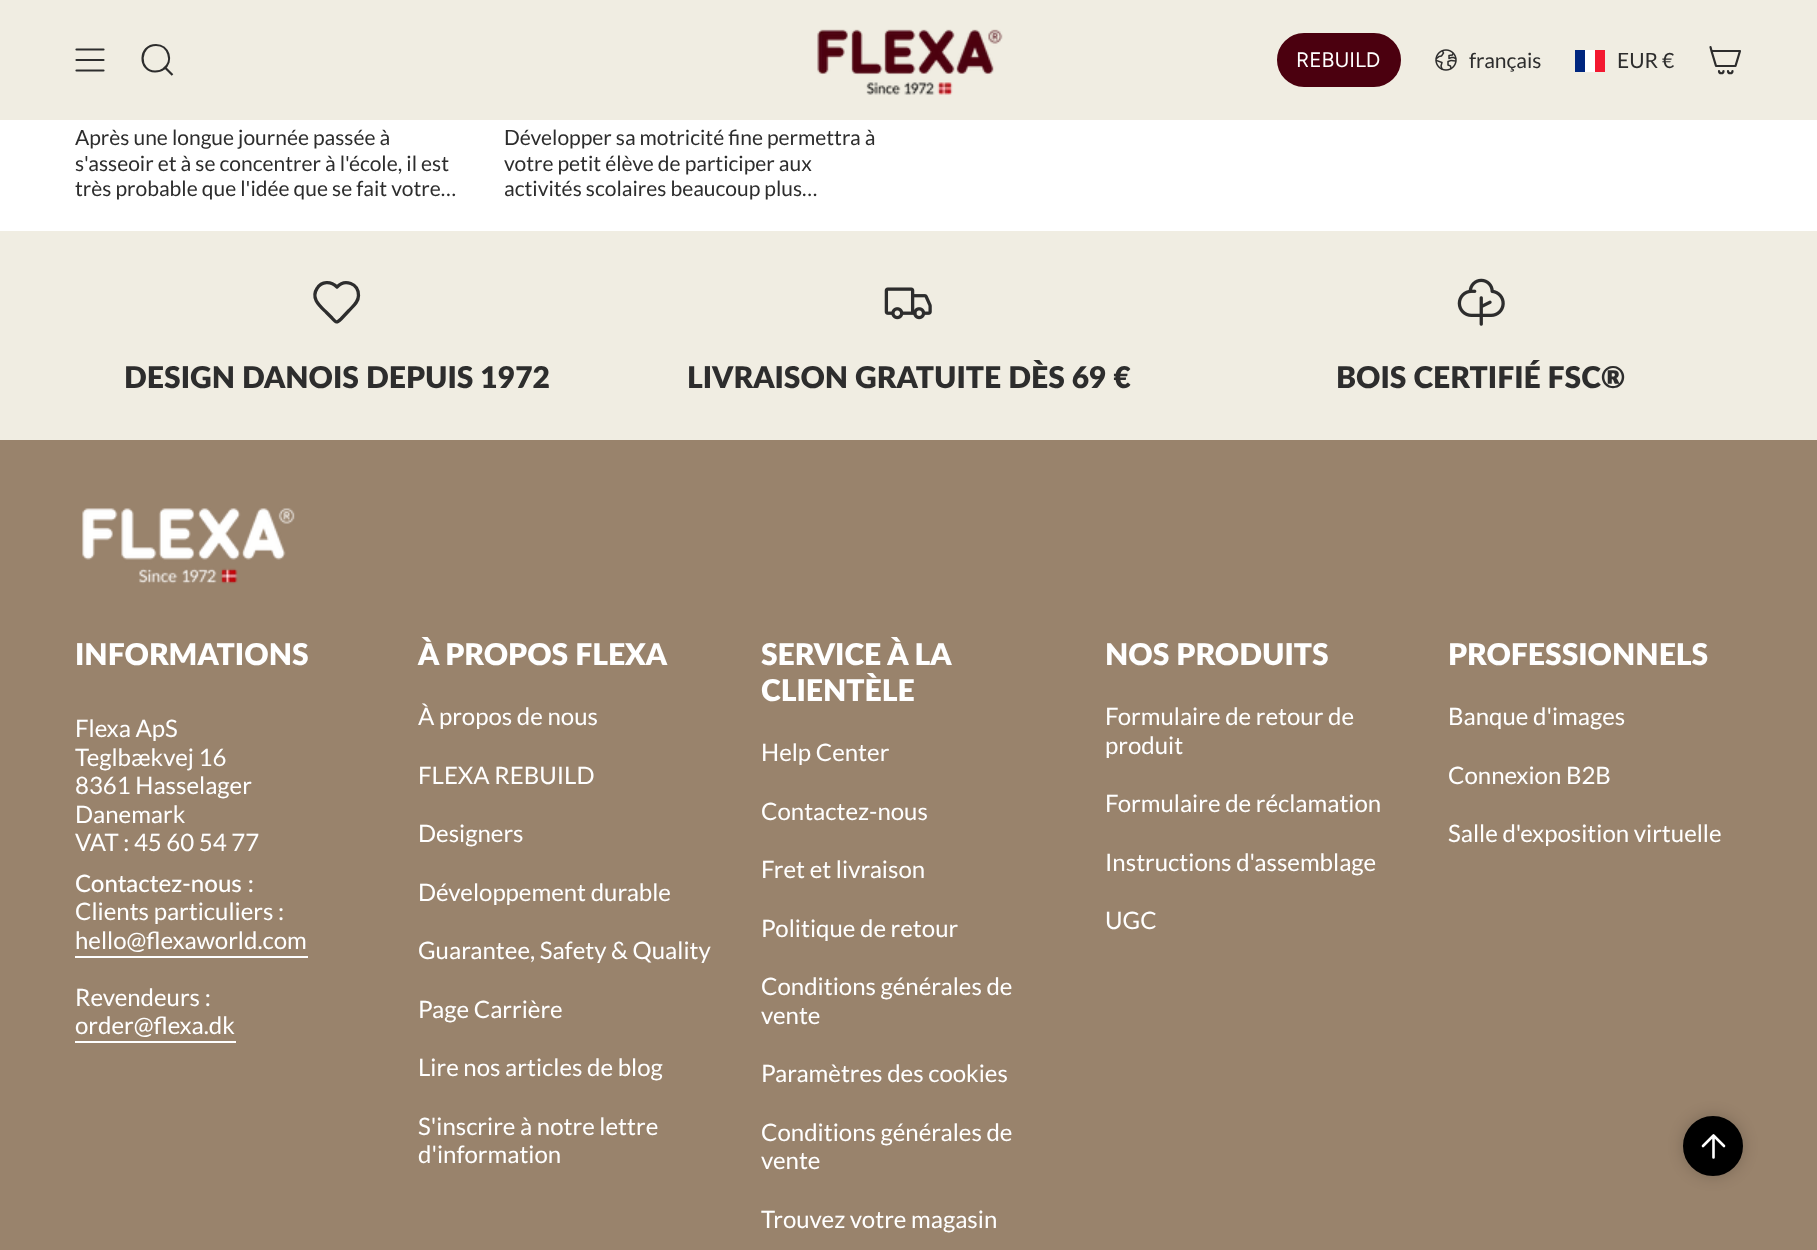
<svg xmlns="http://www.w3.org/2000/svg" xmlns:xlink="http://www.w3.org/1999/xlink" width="1817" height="1250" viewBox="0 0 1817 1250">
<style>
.cls-1{font:21px Figtree;fill:#ffffff}
.cls-2{font:21px Lato;fill:#2d2d2d}
.cls-3{font:800 30px Lato;fill:#2d2d2d}
.cls-4{font:800 30px Lato;fill:#ffffff}
.cls-5{font:24px Lato;fill:#ffffff}
.cls-6{font:500 24px Lato;fill:#ffffff}
</style>
<rect width="100%" height="100%" fill="#ffffff"/>
<rect fill="#f0ede2" x="0" y="0" width="1817" height="120"/>
<path fill="none" stroke="#2d2d2d" stroke-width="2.2" stroke-linecap="round" stroke-linejoin="round" d="M76.5 49.5H103.5M76.5 60H103.5M76.5 70.5H103.5"/>
<path fill="none" stroke="#2d2d2d" stroke-width="2.2" d="M156 45C168.5 45 174 61.5 163.5 69C161 71 158 71.5 155 71.5C138 71 138.5 45 156 45ZM165 67.5L172.5 75"/>
<image xlink:href="image0.png" x="817" y="29" width="186" height="66"/>
<rect fill="#4b000f" stroke="#4b000f" stroke-width="2" x="1278" y="34" width="122" height="52" rx="26"/>
<image xlink:href="image1.png" x="1435" y="49" width="22" height="22"/>
<rect fill="#ffffff" x="1585" y="50" width="10" height="22"/>
<rect fill="#00267f" x="1575" y="50" width="10" height="22"/>
<rect fill="#f31830" x="1595" y="50" width="10" height="22"/>
<path fill="none" stroke="#2d2d2d" stroke-width="2.2" stroke-linecap="round" stroke-linejoin="round" d="M1711.5 51H1740L1735.5 66H1716ZM1711.5 51L1710.5 47M1723.5 71C1723.5 74 1719 74 1719 71M1732.5 71C1732.5 74 1728 74 1728 71"/>
<rect fill="#f0ede2" x="0" y="231" width="1817" height="209"/>
<path fill="none" stroke="#2d2d2d" stroke-width="3.3" stroke-linejoin="round" d="M358.5 295.5C358.5 302 353.5 306 349 310.5L341 319C336.5 323.5 336 322.5 332 318L326.5 312.5C320 306 310.5 298.5 317 288.5C321.5 281 331 281 337 287C345 278.5 358.5 283.5 358.5 295.5Z"/>
<image xlink:href="image2.png" x="884" y="287" width="48" height="33"/>
<image xlink:href="image3.png" x="1457" y="278" width="48" height="48"/>
<rect fill="#99836c" x="0" y="440" width="1817" height="810"/>
<image xlink:href="image4.png" x="82" y="508" width="213" height="76"/>
<rect fill="#ffffff" x="75" y="956" width="233" height="2"/>
<rect fill="#ffffff" x="75" y="1041" width="161" height="2"/>
<rect fill="#000000" fill-opacity="0.2" filter="blur(7.5px)" x="1683" y="1116" width="60" height="60" rx="30"/>
<circle fill="#000000" stroke="#000000" stroke-width="2" cx="1713" cy="1146" r="29"/>
<path fill="none" stroke="#ffffff" stroke-width="2.6" stroke-linecap="round" stroke-linejoin="round" d="M1713.5 1157.5V1135.5M1713.5 1135.5L1724 1146M1713.5 1135.5L1703 1146"/>
<text class="cls-1" x="1296" y="67">REBUILD</text>
<text class="cls-2" x="1469" y="68">français</text>
<text class="cls-2" x="1617" y="68">EUR €</text>
<text class="cls-2"><tspan x="75" y="145">Après une longue journée passée à</tspan><tspan x="75" y="171">s'asseoir et à se concentrer à l'école, il est</tspan><tspan x="75" y="196">très probable que l'idée que se fait votre…</tspan></text>
<text class="cls-2"><tspan x="504" y="145">Développer sa motricité fine permettra à</tspan><tspan x="504" y="171">votre petit élève de participer aux</tspan><tspan x="504" y="196">activités scolaires beaucoup plus…</tspan></text>
<text class="cls-3" x="124" y="388">DESIGN DANOIS DEPUIS 1972</text>
<text class="cls-3" x="687" y="388">LIVRAISON GRATUITE DÈS 69 €</text>
<text class="cls-3" x="1336" y="388">BOIS CERTIFIÉ FSC®</text>
<text class="cls-4" x="75" y="665">INFORMATIONS</text>
<text class="cls-5"><tspan x="75" y="737">Flexa ApS</tspan><tspan x="75" y="766">Teglbækvej 16</tspan><tspan x="75" y="794">8361 Hasselager</tspan><tspan x="75" y="823">Danemark</tspan><tspan x="75" y="851">VAT : 45 60 54 77</tspan></text>
<text class="cls-6" x="75" y="892">Contactez-nous :</text>
<text class="cls-5"><tspan x="75" y="920">Clients particuliers :</tspan><tspan x="75" y="949">hello@flexaworld.com</tspan></text>
<text class="cls-5"><tspan x="75" y="1006">Revendeurs :</tspan><tspan x="75" y="1034">order@flexa.dk</tspan></text>
<text class="cls-4" x="418" y="665">À PROPOS FLEXA</text>
<text class="cls-5" x="418" y="725">À propos de nous</text>
<text class="cls-5" x="418" y="784">FLEXA REBUILD</text>
<text class="cls-5" x="418" y="842">Designers</text>
<text class="cls-5" x="418" y="901">Développement durable</text>
<text class="cls-5" x="418" y="959">Guarantee, Safety &amp; Quality</text>
<text class="cls-5" x="418" y="1018">Page Carrière</text>
<text class="cls-5" x="418" y="1076">Lire nos articles de blog</text>
<text class="cls-5"><tspan x="418" y="1135">S'inscrire à notre lettre</tspan><tspan x="418" y="1163">d'information</tspan></text>
<text class="cls-4"><tspan x="761" y="665">SERVICE À LA</tspan><tspan x="761" y="701">CLIENTÈLE</tspan></text>
<text class="cls-5" x="761" y="761">Help Center</text>
<text class="cls-5" x="761" y="820">Contactez-nous</text>
<text class="cls-5" x="761" y="878">Fret et livraison</text>
<text class="cls-5" x="761" y="937">Politique de retour</text>
<text class="cls-5"><tspan x="761" y="995">Conditions générales de</tspan><tspan x="761" y="1024">vente</tspan></text>
<text class="cls-5" x="761" y="1082">Paramètres des cookies</text>
<text class="cls-5"><tspan x="761" y="1141">Conditions générales de</tspan><tspan x="761" y="1169">vente</tspan></text>
<text class="cls-5" x="761" y="1228">Trouvez votre magasin</text>
<text class="cls-4" x="1105" y="665">NOS PRODUITS</text>
<text class="cls-5"><tspan x="1105" y="725">Formulaire de retour de</tspan><tspan x="1105" y="754">produit</tspan></text>
<text class="cls-5" x="1105" y="812">Formulaire de réclamation</text>
<text class="cls-5" x="1105" y="871">Instructions d'assemblage</text>
<text class="cls-5" x="1105" y="929">UGC</text>
<text class="cls-4" x="1448" y="665">PROFESSIONNELS</text>
<text class="cls-5" x="1448" y="725">Banque d'images</text>
<text class="cls-5" x="1448" y="784">Connexion B2B</text>
<text class="cls-5" x="1448" y="842">Salle d'exposition virtuelle</text>
</svg>
